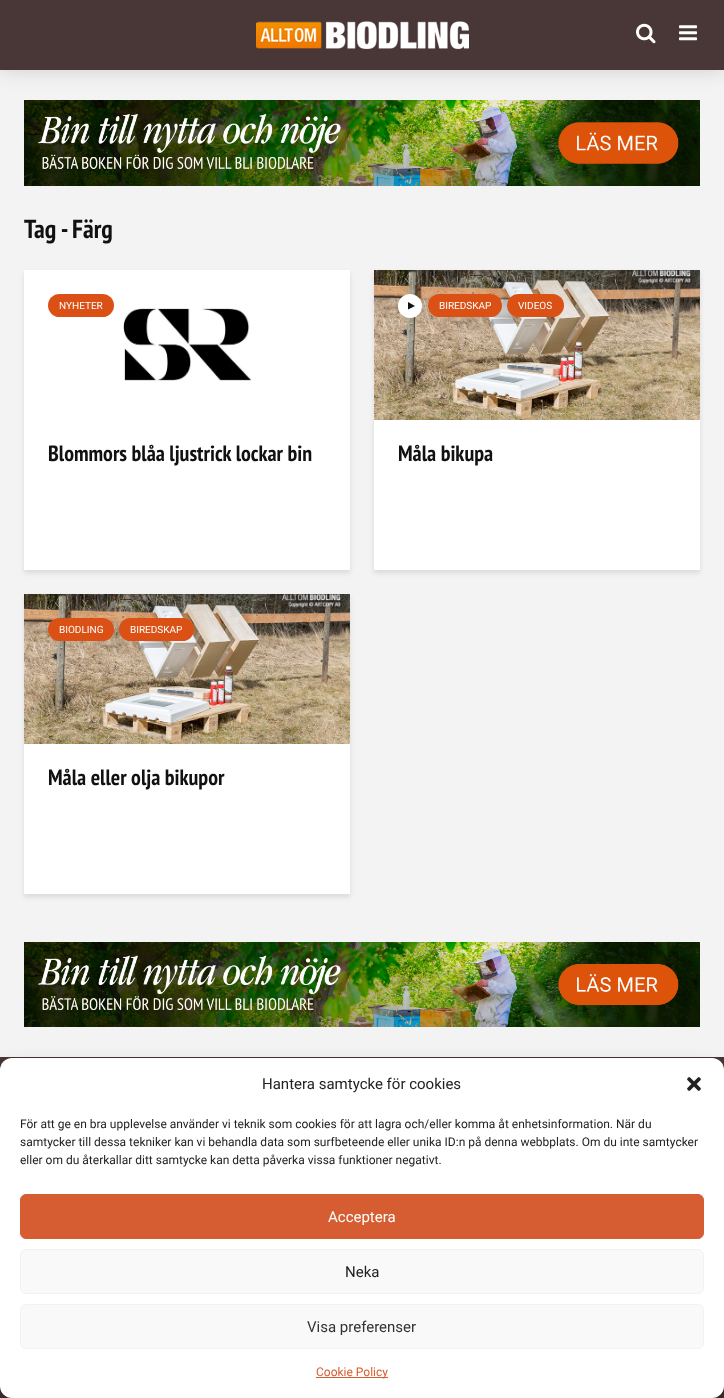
<svg xmlns="http://www.w3.org/2000/svg" xmlns:xlink="http://www.w3.org/1999/xlink" width="724" height="1398" viewBox="0 0 724 1398">
<style>
.cls-1{font:bold 26px PT Sans Narrow;fill:#111111}
.cls-2{font:10px Roboto;fill:#ffffff}
.cls-3{font:bold 22px PT Sans Narrow;fill:#111111}
.cls-4{font:15px Roboto;fill:#222222}
.cls-5{font:12px Roboto;fill:#222222}
.cls-6{font:15px Roboto;fill:#ffffff}
.cls-7{font:15px Roboto;fill:#333333}
.cls-8{font:12px Roboto;fill:#d65d31}
</style>
<rect width="100%" height="100%" fill="#f3f3f3"/>
<image xlink:href="image3.png" x="24" y="100" width="676" height="86"/>
<rect fill="#000000" fill-opacity="0.15" filter="blur(10px)" x="0" y="0" width="724" height="70"/>
<rect fill="#493636" x="0" y="0" width="724" height="70"/>
<image xlink:href="image0.png" x="256" y="21" width="213" height="29"/>
<image xlink:href="image1.png" x="636" y="23" width="20" height="21"/>
<image xlink:href="image2.png" x="679" y="25" width="18" height="16"/>
<rect fill="#000101" fill-opacity="0.1" filter="blur(2.5px)" x="24" y="273" width="326" height="300"/>
<rect fill="#ffffff" x="24" y="270" width="326" height="300"/>
<rect fill="#db5115" x="48" y="294" width="66" height="23" rx="11.5"/>
<image xlink:href="image4.png" x="123" y="308" width="128" height="73"/>
<rect fill="#000101" fill-opacity="0.1" filter="blur(2.5px)" x="374" y="273" width="326" height="300"/>
<rect fill="#ffffff" x="374" y="420" width="326" height="150"/>
<image xlink:href="image5.png" x="374" y="270" width="326" height="150"/>
<circle fill="#ffffff" cx="410" cy="306" r="12"/>
<path fill="#111111" d="M415 306L408 309.5V302Z"/>
<rect fill="#db5115" x="428" y="294" width="74" height="23" rx="11.5"/>
<rect fill="#db5115" x="507" y="294" width="57" height="23" rx="11.5"/>
<rect fill="#000101" fill-opacity="0.1" filter="blur(2.5px)" x="24" y="597" width="326" height="300"/>
<rect fill="#ffffff" x="24" y="744" width="326" height="150"/>
<image xlink:href="image6.png" x="24" y="594" width="326" height="150"/>
<rect fill="#db5115" x="48" y="618" width="66" height="23" rx="11.5"/>
<rect fill="#db5115" x="119" y="618" width="75" height="23" rx="11.5"/>
<image xlink:href="image7.png" x="24" y="942" width="676" height="85"/>
<rect fill="#493636" x="0" y="1057" width="724" height="341"/>
<rect fill="#000000" fill-opacity="0.23" filter="blur(3px)" x="0" y="1064" width="724" height="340" rx="12"/>
<rect fill="#000000" fill-opacity="0.19" filter="blur(10px)" x="0" y="1068" width="724" height="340" rx="12"/>
<rect fill="#ffffff" x="0" y="1058" width="724" height="340" rx="12"/>
<image xlink:href="image8.png" x="687" y="1077" width="14" height="14"/>
<rect fill="#d65d31" stroke="#d65d31" x="20.5" y="1194.5" width="683" height="44" rx="5.5"/>
<rect fill="#f9f9f9" stroke="#f2f2f2" x="20.5" y="1249.5" width="683" height="44" rx="5.5"/>
<rect fill="#f9f9f9" stroke="#f2f2f2" x="20.5" y="1304.5" width="683" height="44" rx="5.5"/>
<rect fill="#d65d31" x="316" y="1377" width="72" height="1"/>
<text class="cls-1" x="24" y="238">Tag - Färg</text>
<text class="cls-2" x="59" y="309">NYHETER</text>
<text class="cls-3" x="48" y="461">Blommors blåa ljustrick lockar bin</text>
<text class="cls-2" x="439" y="309">BIREDSKAP</text>
<text class="cls-2" x="518" y="309">VIDEOS</text>
<text class="cls-3" x="398" y="461">Måla bikupa</text>
<text class="cls-2" x="59" y="633">BIODLING</text>
<text class="cls-2" x="130" y="633">BIREDSKAP</text>
<text class="cls-3" x="48" y="785">Måla eller olja bikupor</text>
<text class="cls-4" x="262" y="1089">Hantera samtycke för cookies</text>
<text class="cls-5"><tspan x="20" y="1128">För att ge en bra upplevelse använder vi teknik som cookies för att lagra och/eller komma åt enhetsinformation. När du</tspan><tspan x="20" y="1146">samtycker till dessa tekniker kan vi behandla data som surfbeteende eller unika ID:n på denna webbplats. Om du inte samtycker</tspan><tspan x="20" y="1164">eller om du återkallar ditt samtycke kan detta påverka vissa funktioner negativt.</tspan></text>
<text class="cls-6" x="328" y="1222">Acceptera</text>
<text class="cls-4" x="345" y="1277">Neka</text>
<text class="cls-7" x="307" y="1332">Visa preferenser</text>
<text class="cls-8" x="316" y="1376">Cookie Policy</text>
</svg>
